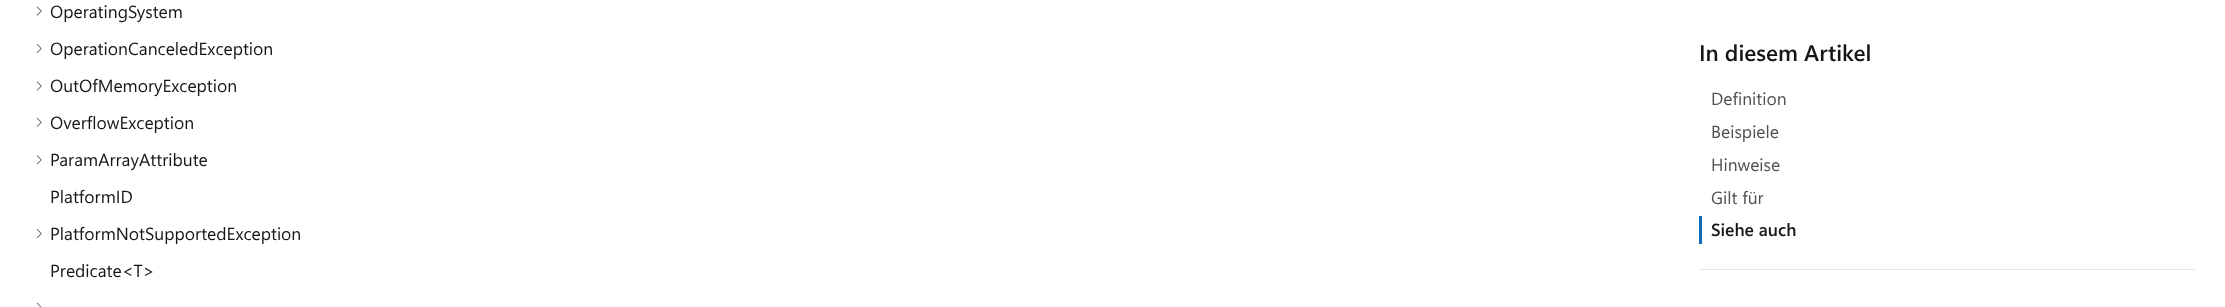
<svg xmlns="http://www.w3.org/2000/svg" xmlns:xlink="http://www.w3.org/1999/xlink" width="2225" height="307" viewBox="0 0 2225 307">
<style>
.cls-1{font:17.5px Segoe UI;fill:#161616}
.cls-2{font:600 22.5px Segoe UI;fill:#161616}
.cls-3{font:17.5px Segoe UI;fill:#505050}
.cls-4{font:600 17.5px Segoe UI;fill:#161616}
</style>
<rect width="100%" height="100%" fill="#ffffff"/>
<image xlink:href="image0.png" x="36" y="6" width="6" height="10"/>
<image xlink:href="image1.png" x="36" y="44" width="6" height="10"/>
<image xlink:href="image0.png" x="36" y="81" width="6" height="10"/>
<image xlink:href="image2.png" x="36" y="117" width="6" height="10"/>
<image xlink:href="image3.png" x="36" y="155" width="6" height="10"/>
<image xlink:href="image1.png" x="36" y="229" width="6" height="10"/>
<image xlink:href="image4.png" x="36" y="302" width="6" height="5"/>
<rect fill="#e6e6e6" x="1699" y="269" width="496" height="1"/>
<rect fill="#0f6cbd" x="1699" y="216" width="3" height="28"/>
<text class="cls-1" x="50" y="18">OperatingSystem</text>
<text class="cls-1" x="50" y="55">OperationCanceledException</text>
<text class="cls-1" x="50" y="92">OutOfMemoryException</text>
<text class="cls-1" x="50" y="129">OverflowException</text>
<text class="cls-1" x="50" y="166">ParamArrayAttribute</text>
<text class="cls-1" x="50" y="203">PlatformID</text>
<text class="cls-1" x="50" y="240">PlatformNotSupportedException</text>
<text class="cls-1" x="50" y="277">Predicate&lt;T&gt;</text>
<text class="cls-2" x="1699" y="61">In diesem Artikel</text>
<text class="cls-3"><tspan x="1711" y="105">Definition</tspan><tspan x="1711" y="138">Beispiele</tspan><tspan x="1711" y="171">Hinweise</tspan><tspan x="1711" y="204">Gilt für</tspan></text>
<text class="cls-4" x="1711" y="236">Siehe auch</text>
</svg>
